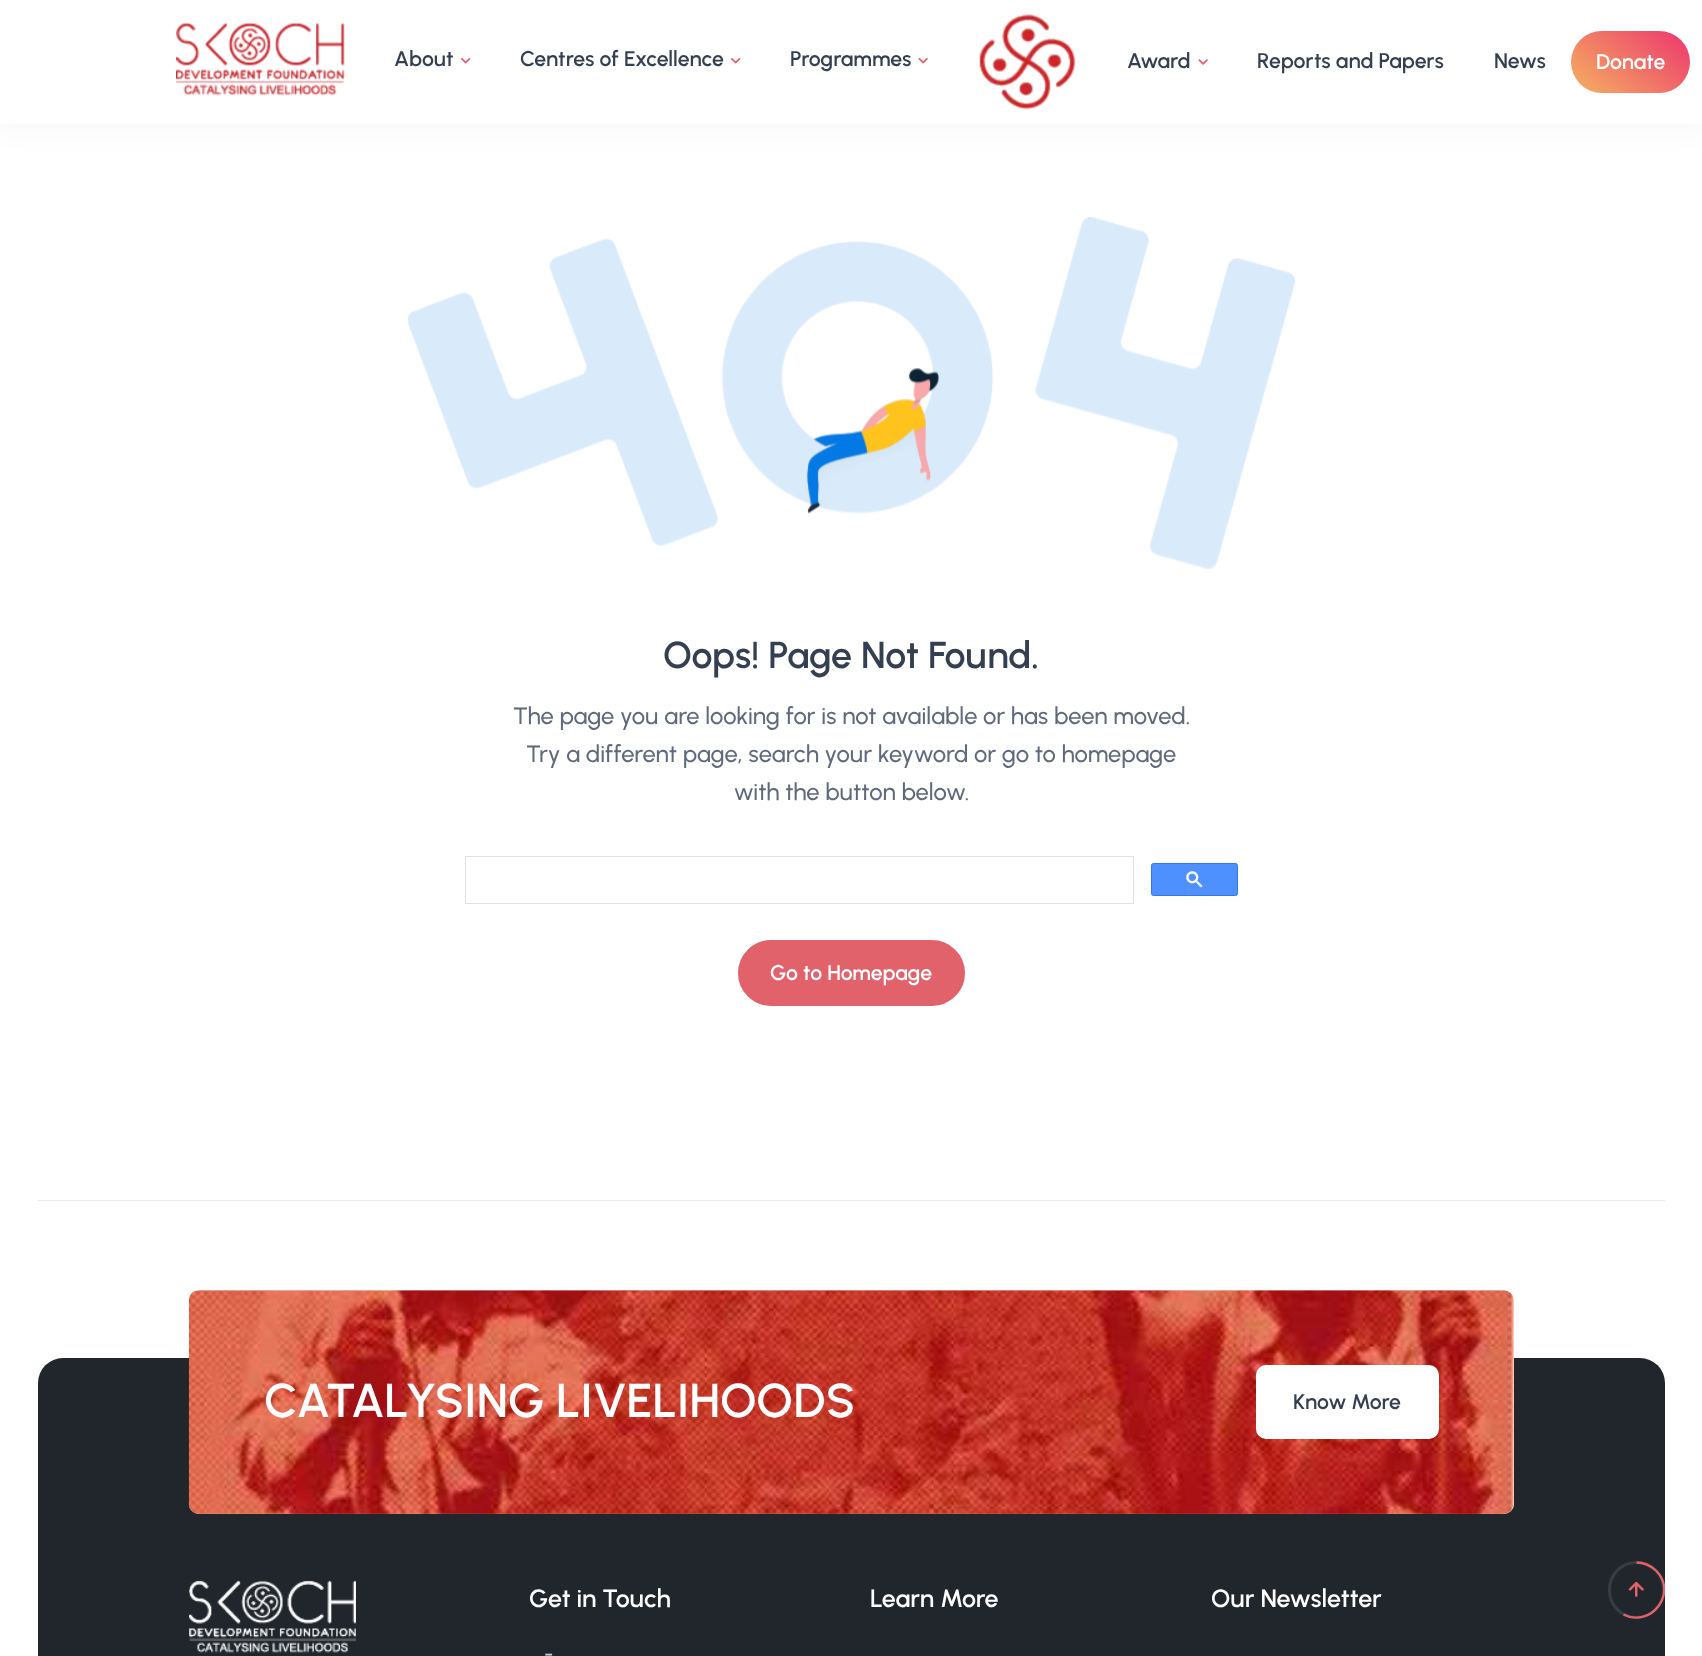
<svg xmlns="http://www.w3.org/2000/svg" xmlns:xlink="http://www.w3.org/1999/xlink" width="1702" height="1656" viewBox="0 0 1702 1656">
<style>
.cls-1{font:600 21.25px Urbanist;fill:#343f52}
.cls-2{font:600 21.25px Urbanist;fill:#ffffff}
.cls-3{font:600 37.5px Urbanist;fill:#343f52}
.cls-4{font:500 23.75px Urbanist;fill:#60697b}
.cls-5{font:600 47.5px Urbanist;fill:#ffffff}
.cls-6{font:600 25px Urbanist;fill:#ffffff}
.cls-7{font:500 21.25px Urbanist;fill:#cacaca}
</style>
<defs>
<linearGradient id="g1" gradientUnits="userSpaceOnUse" x1="1591" y1="109" x2="1670" y2="14"><stop offset="0" stop-color="#f5b161"/><stop offset="1" stop-color="#ec366e"/></linearGradient>
<clipPath id="clip1"><rect x="1608" y="1561" width="57" height="58"/></clipPath>
</defs>
<rect width="100%" height="100%" fill="#ffffff"/>
<rect fill="#1e2228" fill-opacity="0.06" filter="blur(15.5px)" x="0" y="0" width="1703" height="124"/>
<rect fill="#ffffff" x="0" y="0" width="1702" height="124"/>
<image xlink:href="image0.png" x="176" y="23" width="169" height="73"/>
<image xlink:href="image1.png" x="461" y="58" width="10" height="6"/>
<image xlink:href="image1.png" x="731" y="58" width="10" height="6"/>
<image xlink:href="image2.png" x="918" y="58" width="10" height="6"/>
<image xlink:href="image3.png" x="979" y="14" width="97" height="96"/>
<image xlink:href="image4.png" x="1198" y="59" width="10" height="6"/>
<rect fill="url(#g1)" x="1571" y="31" width="119" height="62" rx="31"/>
<image xlink:href="image5.png" x="408" y="217" width="887" height="352"/>
<rect fill="none" stroke="#dfe1e5" x="465.5" y="856.5" width="668" height="47"/>
<rect fill="#4d90fe" stroke="#3079ed" x="1151.5" y="863.5" width="86" height="32" rx="2"/>
<image xlink:href="image6.png" x="1186" y="871" width="17" height="17"/>
<rect fill="#e2626b" stroke="#e2626b" stroke-width="3" x="739.5" y="941.5" width="224" height="63" rx="31.5"/>
<rect fill="#e8ebf1" x="38" y="1200" width="1627" height="1"/>
<rect fill="#21262c" x="38" y="1358" width="1627" height="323" rx="25"/>
<rect fill="#ffffff" x="189" y="1290" width="1325" height="224" rx="10"/>
<image xlink:href="image7.png" x="188" y="1290" width="1326" height="224"/>
<rect fill="#ffffff" stroke="#ffffff" stroke-width="3" x="1257.5" y="1366.5" width="180" height="71" rx="8.5"/>
<image xlink:href="image8.png" x="189" y="1580" width="167" height="73"/>
<rect fill="none" stroke="#393d43" stroke-width="3" x="1609.5" y="1562.5" width="54" height="55" rx="27"/>
<g clip-path="url(#clip1)">
<path fill="none" stroke="#e2626b" stroke-width="2.3" d="M1636.5 1562.5C1643.5 1562.5 1650.5 1565.5 1656 1570.5C1678.5 1593 1650.5 1628.5 1623.5 1614.5"/>
</g>
<image xlink:href="image9.png" x="1628" y="1581" width="16" height="16"/>
<text class="cls-1" x="394" y="66">About</text>
<text class="cls-1" x="520" y="66">Centres of Excellence</text>
<text class="cls-1" x="790" y="66">Programmes</text>
<text class="cls-1" x="1127" y="68">Award</text>
<text class="cls-1" x="1257" y="68">Reports and Papers</text>
<text class="cls-1" x="1494" y="68">News</text>
<text class="cls-2" x="1596" y="69">Donate</text>
<text class="cls-3" x="663" y="668">Oops! Page Not Found.</text>
<text class="cls-4" x="513" y="724">The page you are looking for is not available or has been moved.</text>
<text class="cls-4" x="526" y="762">Try a different page, search your keyword or go to homepage</text>
<text class="cls-4" x="734" y="800">with the button below.</text>
<text class="cls-2" x="770" y="980">Go to Homepage</text>
<text class="cls-5" x="264" y="1417">CATALYSING LIVELIHOODS</text>
<text class="cls-1" x="1293" y="1409">Know More</text>
<text class="cls-6" x="529" y="1607">Get in Touch</text>
<text class="cls-7" x="544" y="1661">-</text>
<text class="cls-6" x="870" y="1607">Learn More</text>
<text class="cls-6" x="1211" y="1607">Our Newsletter</text>
</svg>
